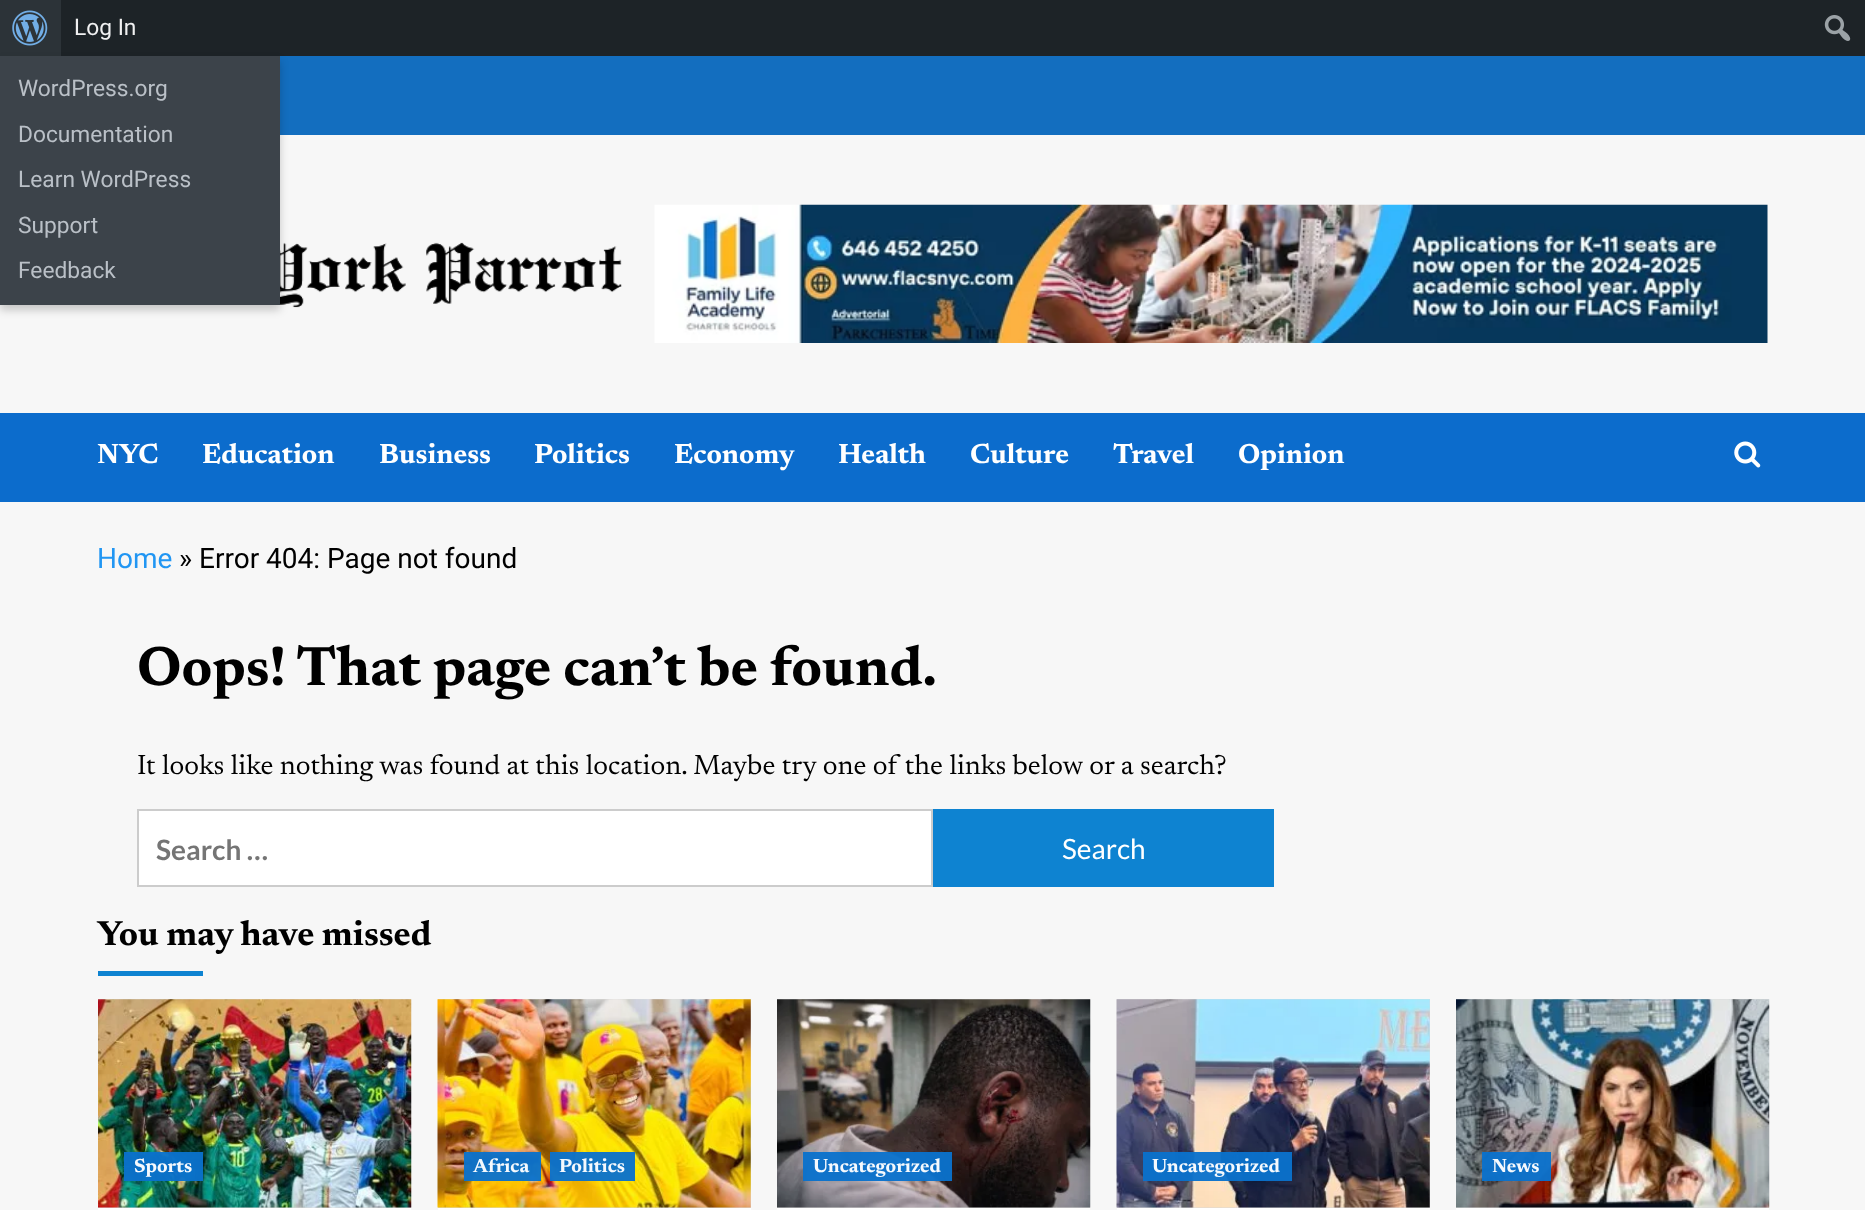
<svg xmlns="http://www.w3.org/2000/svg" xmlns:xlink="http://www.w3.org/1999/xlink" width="1865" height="1210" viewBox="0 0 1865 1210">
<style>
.cls-1{font:22.75px Roboto;fill:#f0f0f1}
.cls-2{font:22.75px Roboto;fill:#bac0c7}
.cls-3{font:bold 28px Newsreader;fill:#ffffff}
.cls-4{font:28px Roboto;fill:#2196f3}
.cls-5{font:28px Roboto;fill:#000000}
.cls-6{font:bold 56px Newsreader;fill:#000000}
.cls-7{font:28px Newsreader;fill:#000000}
.cls-8{font:bold 28px Lato;fill:#757575}
.cls-9{font:28px Lato;fill:#ffffff}
.cls-10{font:bold 35px Newsreader;fill:#000000}
.cls-11{font:bold 19.25px Newsreader;fill:#f5f9fd}
</style>
<rect width="100%" height="100%" fill="#f7f7f7"/>
<rect fill="#1d2327" x="61" y="0" width="1804" height="56"/>
<rect fill="#2c3338" x="0" y="0" width="61" height="56"/>
<image xlink:href="image0.png" x="12" y="10" width="36" height="36"/>
<rect fill="#136ebf" x="280" y="56" width="1585" height="79"/>
<image xlink:href="image2.png" x="280" y="242" width="342" height="66"/>
<rect fill="#000000" fill-opacity="0.2" filter="blur(4.5px)" x="0" y="61" width="280" height="249"/>
<rect fill="#3c434a" x="0" y="56" width="280" height="249"/>
<image xlink:href="image1.png" x="1824" y="15" width="27" height="26"/>
<image xlink:href="image3.png" x="654" y="204" width="1114" height="139"/>
<rect fill="#0c6ccc" x="0" y="413" width="1865" height="89"/>
<image xlink:href="image4.png" x="1734" y="441" width="27" height="27"/>
<rect fill="#ffffff" stroke="#cccccc" stroke-width="2" x="138" y="810" width="794" height="76"/>
<rect fill="#0e83d1" x="933" y="809" width="341" height="78"/>
<rect fill="#0e83d1" x="98" y="971" width="105" height="5"/>
<rect fill="#ffffff" x="98" y="1208" width="313" height="2"/>
<rect fill="#d8d8d8" x="98" y="999" width="313" height="209"/>
<image xlink:href="image5.png" x="98" y="999" width="314" height="209"/>
<rect fill="#0a71cc" fill-opacity="0.96" x="124" y="1152" width="79" height="29"/>
<rect fill="#ffffff" x="438" y="1208" width="313" height="2"/>
<rect fill="#d8d8d8" x="438" y="999" width="313" height="209"/>
<image xlink:href="image6.png" x="437" y="999" width="314" height="209"/>
<rect fill="#0a71cc" fill-opacity="0.96" x="464" y="1152" width="77" height="29"/>
<rect fill="#0a71cc" fill-opacity="0.96" x="550" y="1152" width="85" height="29"/>
<rect fill="#ffffff" x="777" y="1208" width="313" height="2"/>
<rect fill="#d8d8d8" x="777" y="999" width="313" height="209"/>
<image xlink:href="image7.png" x="777" y="999" width="314" height="209"/>
<rect fill="#0a71cc" fill-opacity="0.96" x="803" y="1152" width="149" height="29"/>
<rect fill="#ffffff" x="1117" y="1208" width="313" height="2"/>
<rect fill="#d8d8d8" x="1117" y="999" width="313" height="209"/>
<image xlink:href="image8.png" x="1116" y="999" width="314" height="209"/>
<rect fill="#0a71cc" fill-opacity="0.96" x="1143" y="1152" width="149" height="29"/>
<rect fill="#ffffff" x="1456" y="1208" width="313" height="2"/>
<rect fill="#d8d8d8" x="1456" y="999" width="313" height="209"/>
<image xlink:href="image9.png" x="1456" y="999" width="314" height="209"/>
<rect fill="#0a71cc" fill-opacity="0.96" x="1482" y="1152" width="69" height="29"/>
<text class="cls-1" x="74" y="35">Log In</text>
<text class="cls-2" x="18" y="96">WordPress.org</text>
<text class="cls-2"><tspan x="18" y="142">Documentation</tspan><tspan x="18" y="187">Learn WordPress</tspan></text>
<text class="cls-2"><tspan x="18" y="233">Support</tspan><tspan x="18" y="278">Feedback</tspan></text>
<text class="cls-3" x="97" y="463">NYC</text>
<text class="cls-3" x="202" y="463">Education</text>
<text class="cls-3" x="379" y="463">Business</text>
<text class="cls-3" x="534" y="463">Politics</text>
<text class="cls-3" x="674" y="463">Economy</text>
<text class="cls-3" x="838" y="463">Health</text>
<text class="cls-3" x="970" y="463">Culture</text>
<text class="cls-3" x="1113" y="463">Travel</text>
<text class="cls-3" x="1238" y="463">Opinion</text>
<text class="cls-4" x="97" y="568">Home</text>
<text class="cls-5" x="179" y="568">» Error 404: Page not found</text>
<text class="cls-6" x="137" y="685">Oops! That page can’t be found.</text>
<text class="cls-7" x="137" y="774">It looks like nothing was found at this location. Maybe try one of the links below or a search?</text>
<text class="cls-8" x="156" y="860">Search …</text>
<text class="cls-9" x="1062" y="859">Search</text>
<text class="cls-10" x="97" y="945">You may have missed</text>
<text class="cls-11" x="134" y="1172">Sports</text>
<text class="cls-11" x="473" y="1172">Africa</text>
<text class="cls-11" x="559" y="1172">Politics</text>
<text class="cls-11" x="813" y="1172">Uncategorized</text>
<text class="cls-11" x="1152" y="1172">Uncategorized</text>
<text class="cls-11" x="1492" y="1172">News</text>
</svg>
